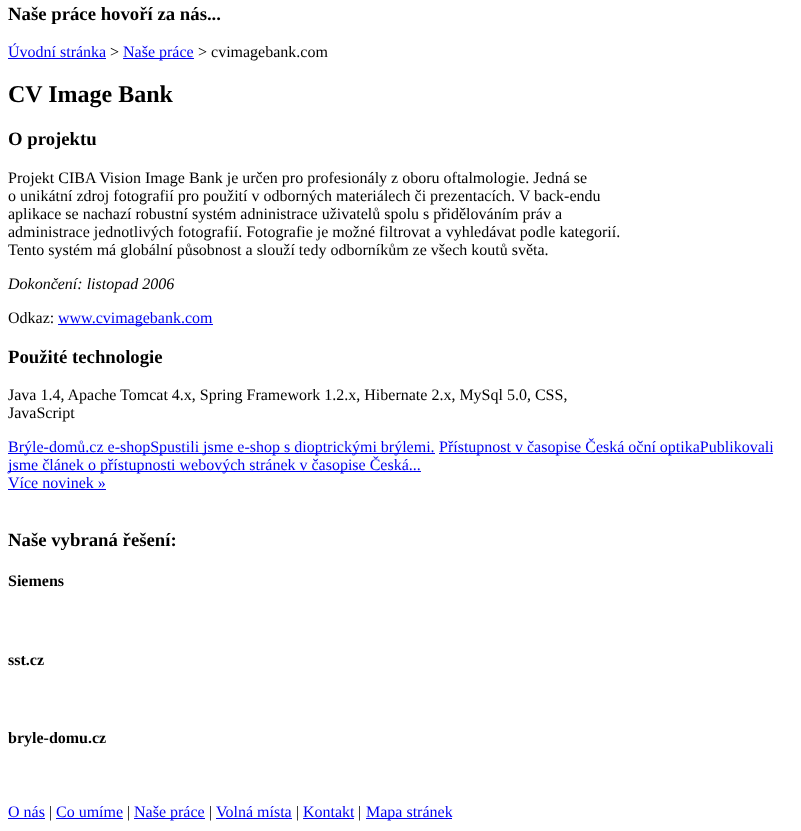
<svg xmlns="http://www.w3.org/2000/svg" xmlns:xlink="http://www.w3.org/1999/xlink" width="801" height="831" viewBox="0 0 801 831">
<style>
.cls-1{font:bold 18.75px Liberation Serif;fill:#000000}
.cls-2{font:16px Liberation Serif;fill:#0000ee}
.cls-3{font:16px Liberation Serif;fill:#000000}
.cls-4{font:bold 24px Liberation Serif;fill:#000000}
.cls-5{font:italic 16px Liberation Serif;fill:#000000}
.cls-6{font:bold 16px Liberation Serif;fill:#000000}
</style>
<rect width="100%" height="100%" fill="#ffffff"/>
<rect fill="#0000ee" x="8" y="58" width="98" height="1"/>
<rect fill="#0000ee" x="123" y="58" width="71" height="1"/>
<rect fill="#0000ee" x="58" y="324" width="155" height="1"/>
<rect fill="#0000ee" x="8" y="453" width="427" height="1"/>
<rect fill="#0000ee" x="439" y="453" width="260" height="1"/>
<rect fill="#0000ee" x="699" y="453" width="74" height="1"/>
<rect fill="#0000ee" x="8" y="471" width="413" height="1"/>
<rect fill="#0000ee" x="8" y="489" width="98" height="1"/>
<rect fill="#0000ee" x="8" y="818" width="37" height="1"/>
<rect fill="#0000ee" x="56" y="818" width="67" height="1"/>
<rect fill="#0000ee" x="134" y="818" width="71" height="1"/>
<rect fill="#0000ee" x="216" y="818" width="76" height="1"/>
<rect fill="#0000ee" x="303" y="818" width="51" height="1"/>
<rect fill="#0000ee" x="366" y="818" width="86" height="1"/>
<text class="cls-1" x="8" y="20">Naše práce hovoří za nás...</text>
<text class="cls-2" x="8" y="57">Úvodní stránka</text>
<text class="cls-3" x="110" y="57">&gt;</text>
<text class="cls-2" x="123" y="57">Naše práce</text>
<text class="cls-3" x="198" y="57">&gt; cvimagebank.com</text>
<text class="cls-4" x="8" y="102">CV Image Bank</text>
<text class="cls-1" x="8" y="145">O projektu</text>
<text class="cls-3"><tspan x="8" y="183">Projekt CIBA Vision Image Bank je určen pro profesionály z oboru oftalmologie. Jedná se</tspan><tspan x="8" y="201">o unikátní zdroj fotografií pro použití v odborných materiálech či prezentacích. V back-endu</tspan><tspan x="8" y="219">aplikace se nachazí robustní systém adninistrace uživatelů spolu s přidělováním práv a</tspan><tspan x="8" y="237">administrace jednotlivých fotografií. Fotografie je možné filtrovat a vyhledávat podle kategorií.</tspan><tspan x="8" y="255">Tento systém má globální působnost a slouží tedy odborníkům ze všech koutů světa.</tspan></text>
<text class="cls-5" x="8" y="289">Dokončení: listopad 2006</text>
<text class="cls-3" x="8" y="323">Odkaz:</text>
<text class="cls-2" x="58" y="323">www.cvimagebank.com</text>
<text class="cls-1" x="8" y="363">Použité technologie</text>
<text class="cls-3"><tspan x="8" y="400">Java 1.4, Apache Tomcat 4.x, Spring Framework 1.2.x, Hibernate 2.x, MySql 5.0, CSS,</tspan><tspan x="8" y="418">JavaScript</tspan></text>
<text class="cls-2" x="8" y="452">Brýle-domů.cz e-shopSpustili jsme e-shop s dioptrickými brýlemi.</text>
<text class="cls-2" x="439" y="452">Přístupnost v časopise Česká oční optikaPublikovali</text>
<text class="cls-2"><tspan x="8" y="470">jsme článek o přístupnosti webových stránek v časopise Česká...</tspan><tspan x="8" y="488">Více novinek »</tspan></text>
<text class="cls-1" x="8" y="546">Naše vybraná řešení:</text>
<text class="cls-6" x="8" y="586">Siemens</text>
<text class="cls-6" x="8" y="665">sst.cz</text>
<text class="cls-6" x="8" y="743">bryle-domu.cz</text>
<text class="cls-2" x="8" y="817">O nás</text>
<text class="cls-3" x="49" y="817">|</text>
<text class="cls-2" x="56" y="817">Co umíme</text>
<text class="cls-3" x="127" y="817">|</text>
<text class="cls-2" x="134" y="817">Naše práce</text>
<text class="cls-3" x="209" y="817">|</text>
<text class="cls-2" x="216" y="817">Volná místa</text>
<text class="cls-3" x="296" y="817">|</text>
<text class="cls-2" x="303" y="817">Kontakt</text>
<text class="cls-3" x="358" y="817">|</text>
<text class="cls-2" x="366" y="817">Mapa stránek</text>
</svg>
